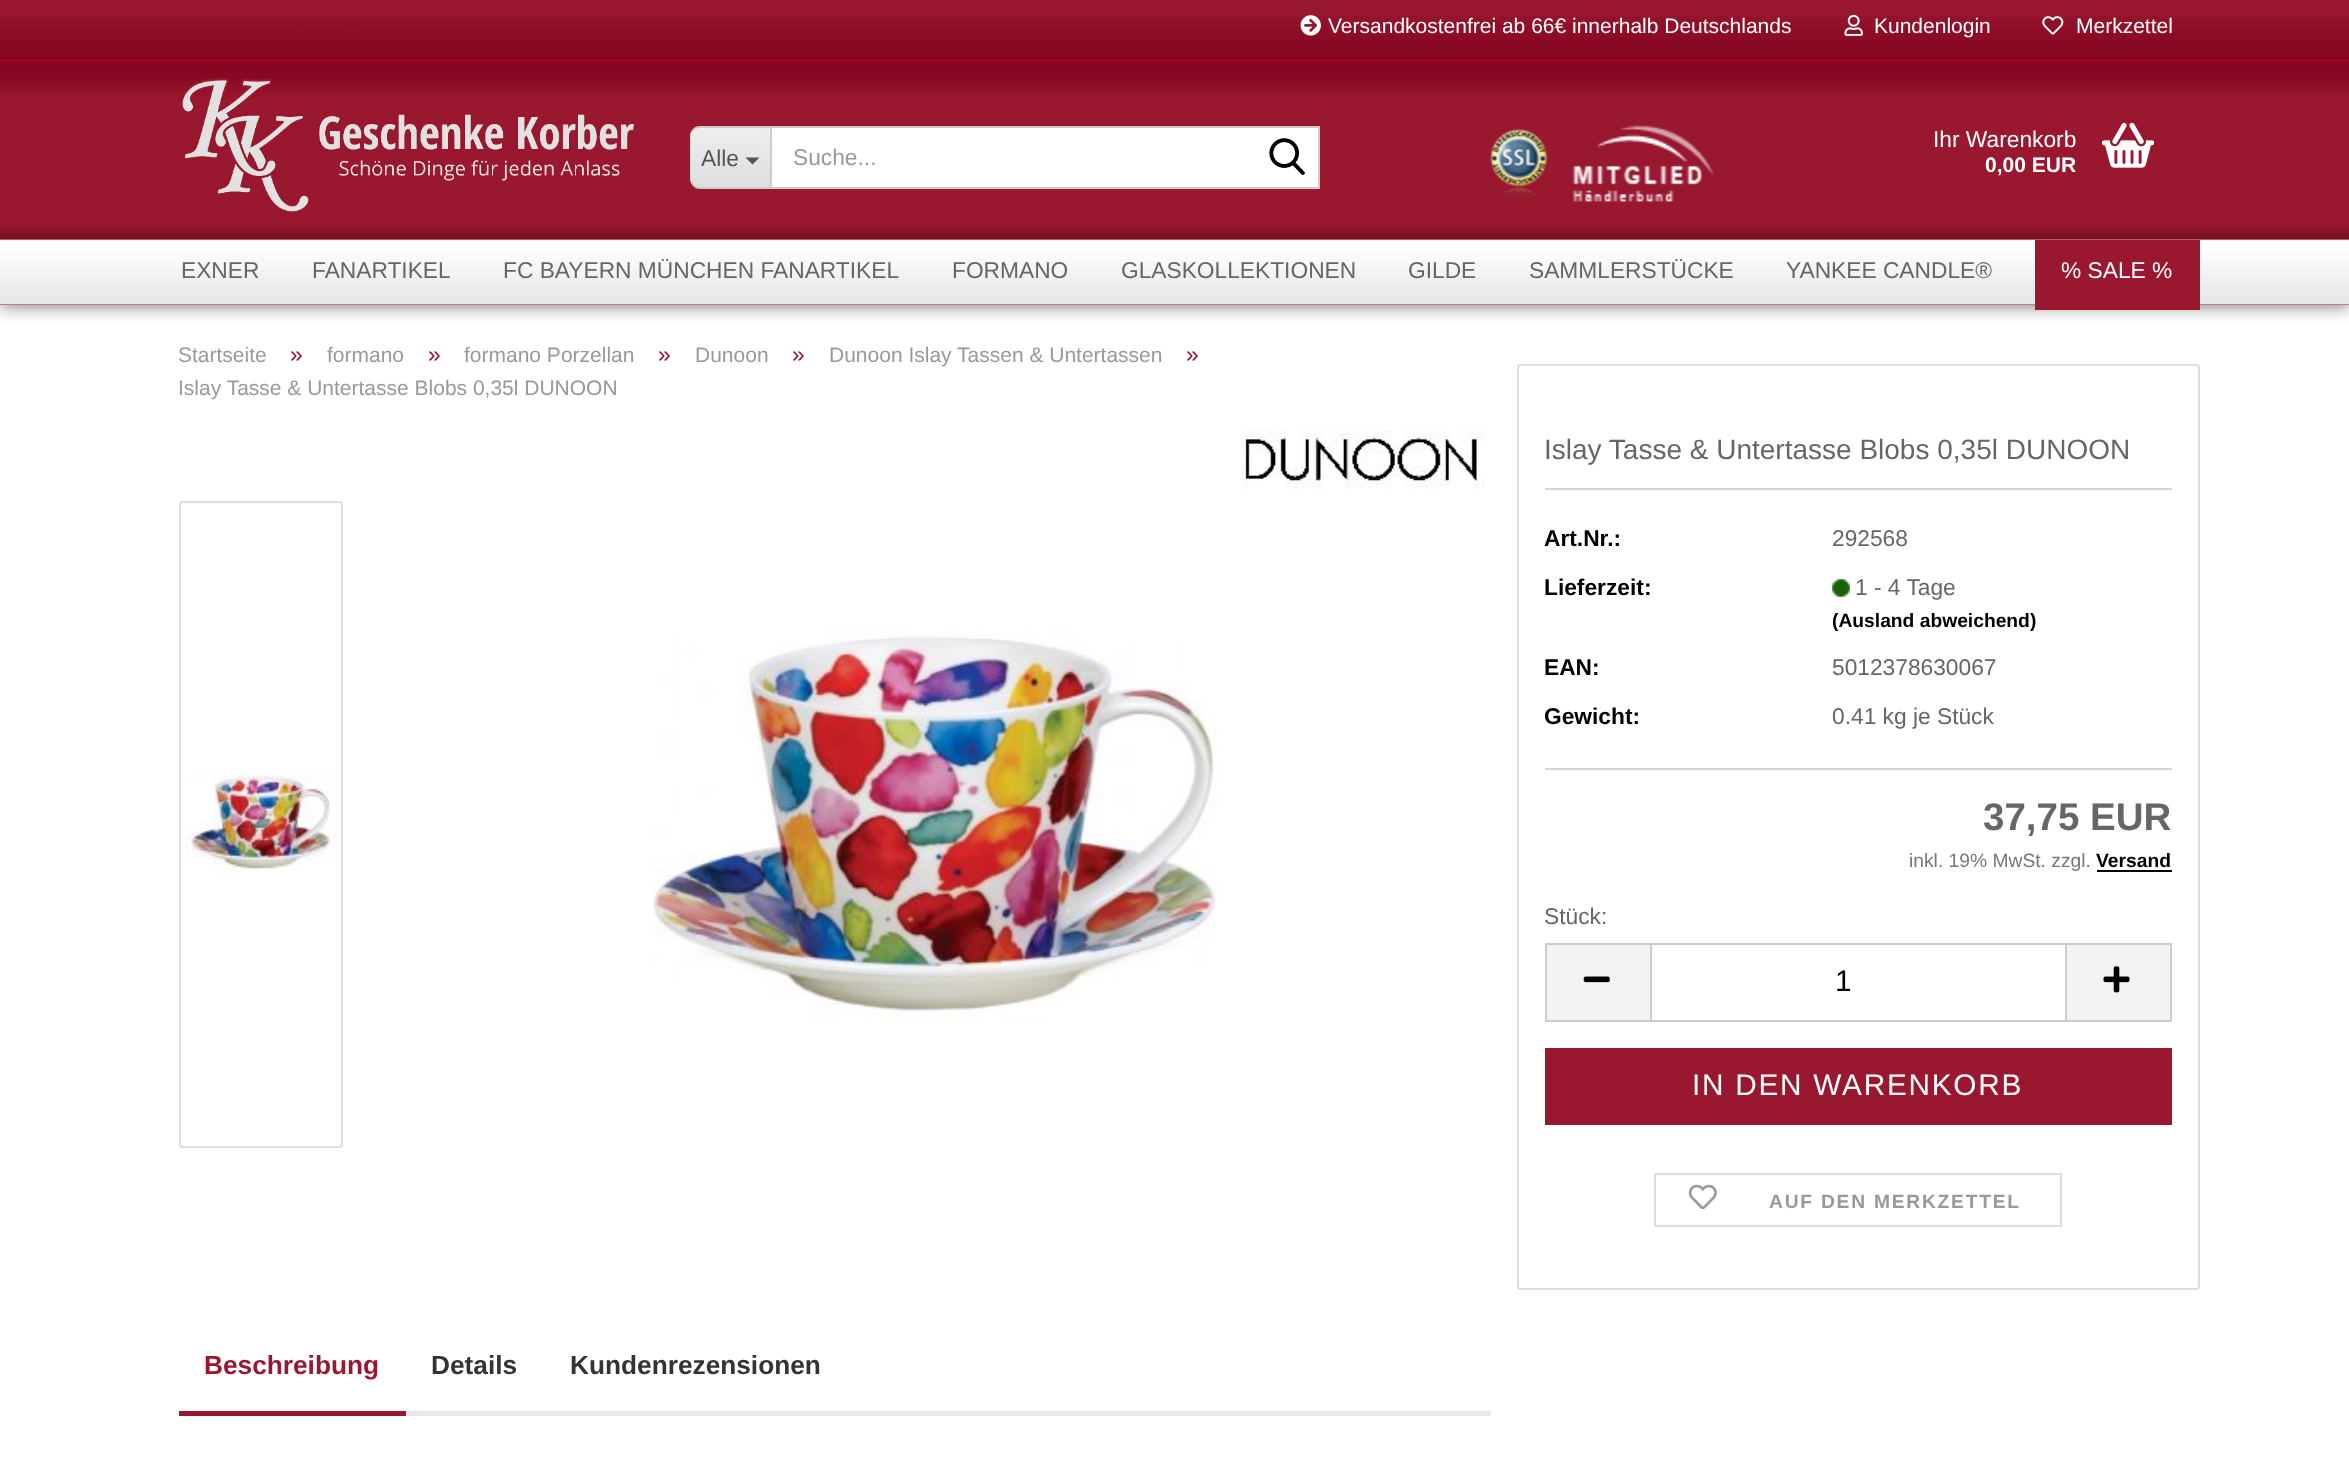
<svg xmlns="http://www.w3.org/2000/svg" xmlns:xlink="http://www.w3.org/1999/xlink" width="2349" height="1458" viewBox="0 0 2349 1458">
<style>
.cls-1{font:21px Liberation Sans;fill:#ffffff}
.cls-2{font:22.75px Liberation Sans;fill:#555555}
.cls-3{font:22.75px Liberation Sans;fill:#999999}
.cls-4{font:22.75px Liberation Sans;fill:#ffffff}
.cls-5{font:bold 21px Liberation Sans;fill:#ffffff}
.cls-6{font:22.75px Liberation Sans;fill:#666666}
.cls-7{font:21px Liberation Sans;fill:#999999}
.cls-8{font:22.75px Liberation Sans;fill:#99172f}
.cls-9{font:28px Liberation Sans;fill:#666666}
.cls-10{font:bold 22.75px Liberation Sans;fill:#000000}
.cls-11{font:bold 19.25px Liberation Sans;fill:#000000}
.cls-12{font:bold 38.5px Liberation Sans;fill:#666666}
.cls-13{font:19.25px Liberation Sans;fill:#777777}
.cls-14{font:29.75px Liberation Sans;fill:#000000}
.cls-15{font:29.75px Liberation Sans;letter-spacing:1.75px;fill:#ffffff}
.cls-16{font:bold 19.25px Liberation Sans;letter-spacing:1.75px;fill:#999999}
.cls-17{font:bold 26.25px Liberation Sans;fill:#99172f}
.cls-18{font:bold 26.25px Liberation Sans;fill:#333333}
</style>
<defs>
<clipPath id="clip1"><path d="M701 126H770V189H701C695 189 690 184 690 178V137C690 131 695 126 701 126Z"/></clipPath>
<linearGradient id="g1" gradientUnits="userSpaceOnUse" x1="731" y1="128" x2="731" y2="187"><stop offset="0" stop-color="#eeeeee"/><stop offset="1" stop-color="#dedede"/></linearGradient>
</defs>
<rect width="100%" height="100%" fill="#ffffff"/>
<rect fill="#000000" fill-opacity="0.6" filter="blur(9px)" x="0" y="0" width="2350" height="305"/>
<rect fill="#99172f" x="0" y="0" width="2349" height="305"/>
<image xlink:href="image0.png" x="0" y="16" width="2349" height="289"/>
<image xlink:href="image1.png" x="1300" y="15" width="21" height="21"/>
<image xlink:href="image2.png" x="1844" y="14" width="19" height="22"/>
<image xlink:href="image3.png" x="2042" y="16" width="22" height="19"/>
<image xlink:href="image4.png" x="182" y="78" width="452" height="134"/>
<g clip-path="url(#clip1)">
<rect fill="url(#g1)" x="690" y="128" width="80" height="59"/>
</g>
<path fill="#cccccc" fill-rule="evenodd" d="M700 126H770V189H700C694 189 690 184 690 178V136C690 131 694 126 700 126ZM700 128H770V187H700C695 187 691 183 691 178V136C691 132 695 128 700 128Z"/>
<path fill="#555555" d="M745.5 157.5H759.5L752.5 164.5Z"/>
<rect fill="#ffffff" stroke="#cccccc" stroke-width="2" x="771" y="127" width="548" height="61"/>
<image xlink:href="image5.png" x="1269" y="138" width="36" height="37"/>
<image xlink:href="image6.png" x="1490" y="129" width="58" height="69"/>
<image xlink:href="image7.png" x="1572" y="125" width="142" height="77"/>
<image xlink:href="image8.png" x="2102" y="122" width="52" height="46"/>
<rect fill="#99172f" x="2035" y="240" width="165" height="70"/>
<image xlink:href="image9.png" x="1240" y="430" width="245" height="59"/>
<rect fill="none" stroke="#dddddd" stroke-width="2" x="180" y="502" width="162" height="645" rx="3"/>
<image xlink:href="image10.png" x="186" y="774" width="150" height="99"/>
<image xlink:href="image11.png" x="653" y="630" width="564" height="392"/>
<rect fill="none" stroke="#dddddd" stroke-width="2" x="1518" y="365" width="681" height="924" rx="3"/>
<rect fill="#d5d5d5" x="1545" y="488" width="627" height="2"/>
<rect fill="#d5d5d5" x="1545" y="768" width="627" height="2"/>
<image xlink:href="image12.png" x="1832" y="579" width="18" height="18"/>
<rect fill="#000000" x="2097" y="870" width="75" height="2"/>
<rect fill="#f3f3f3" x="1547" y="945" width="103" height="75"/>
<rect fill="#cccccc" x="1545" y="943" width="105" height="2"/>
<rect fill="#cccccc" x="1545" y="1020" width="105" height="2"/>
<rect fill="#cccccc" x="1545" y="943" width="2" height="79"/>
<image xlink:href="image13.png" x="1583" y="976" width="27" height="7"/>
<rect fill="none" stroke="#cccccc" stroke-width="2" x="1651" y="944" width="415" height="77"/>
<rect fill="#f3f3f3" x="2067" y="945" width="103" height="75"/>
<rect fill="#cccccc" x="2067" y="943" width="105" height="2"/>
<rect fill="#cccccc" x="2170" y="943" width="2" height="79"/>
<rect fill="#cccccc" x="2067" y="1020" width="105" height="2"/>
<image xlink:href="image14.png" x="2103" y="966" width="27" height="27"/>
<rect fill="#99172f" x="1545" y="1048" width="627" height="77"/>
<rect fill="none" stroke="#dddddd" stroke-width="2" x="1655" y="1174" width="406" height="52"/>
<image xlink:href="image15.png" x="1688" y="1184" width="29" height="26"/>
<rect fill="#e7e7e7" x="406" y="1411" width="1085" height="5"/>
<rect fill="#99172f" x="179" y="1411" width="227" height="5"/>
<text class="cls-1" x="1328" y="33">Versandkostenfrei ab 66€ innerhalb Deutschlands</text>
<text class="cls-1" x="1874" y="33">Kundenlogin</text>
<text class="cls-1" x="2076" y="33">Merkzettel</text>
<text class="cls-2" x="701" y="166">Alle</text>
<text class="cls-3" x="793" y="165">Suche...</text>
<text class="cls-4" x="1933" y="147">Ihr Warenkorb</text>
<text class="cls-5" x="1985" y="172">0,00 EUR</text>
<text class="cls-6" x="181" y="278">EXNER</text>
<text class="cls-6" x="312" y="278">FANARTIKEL</text>
<text class="cls-6" x="503" y="278">FC BAYERN MÜNCHEN FANARTIKEL</text>
<text class="cls-6" x="952" y="278">FORMANO</text>
<text class="cls-6" x="1121" y="278">GLASKOLLEKTIONEN</text>
<text class="cls-6" x="1408" y="278">GILDE</text>
<text class="cls-6" x="1529" y="278">SAMMLERSTÜCKE</text>
<text class="cls-6" x="1786" y="278">YANKEE CANDLE®</text>
<text class="cls-4" x="2061" y="278">% SALE %</text>
<text class="cls-7" x="178" y="362">Startseite</text>
<text class="cls-8" x="290" y="362">»</text>
<text class="cls-7" x="327" y="362">formano</text>
<text class="cls-8" x="428" y="362">»</text>
<text class="cls-7" x="464" y="362">formano Porzellan</text>
<text class="cls-8" x="658" y="362">»</text>
<text class="cls-7" x="695" y="362">Dunoon</text>
<text class="cls-8" x="792" y="362">»</text>
<text class="cls-7" x="829" y="362">Dunoon Islay Tassen &amp; Untertassen</text>
<text class="cls-8" x="1186" y="362">»</text>
<text class="cls-7" x="178" y="395">Islay Tasse &amp; Untertasse Blobs 0,35l DUNOON</text>
<text class="cls-9" x="1544" y="459">Islay Tasse &amp; Untertasse Blobs 0,35l DUNOON</text>
<text class="cls-10" x="1544" y="546">Art.Nr.:</text>
<text class="cls-6" x="1832" y="546">292568</text>
<text class="cls-10" x="1544" y="595">Lieferzeit:</text>
<text class="cls-6" x="1855" y="595">1 - 4 Tage</text>
<text class="cls-11" x="1832" y="627">(Ausland abweichend)</text>
<text class="cls-10" x="1544" y="675">EAN:</text>
<text class="cls-6" x="1832" y="675">5012378630067</text>
<text class="cls-10" x="1544" y="724">Gewicht:</text>
<text class="cls-6" x="1832" y="724">0.41 kg je Stück</text>
<text class="cls-12" x="1983" y="830">37,75 EUR</text>
<text class="cls-13" x="1909" y="867">inkl. 19% MwSt. zzgl.</text>
<text class="cls-11" x="2096" y="867">Versand</text>
<text class="cls-6" x="1544" y="924">Stück:</text>
<text class="cls-14" x="1835" y="991">1</text>
<text class="cls-15" x="1692" y="1095">IN DEN WARENKORB</text>
<text class="cls-16" x="1769" y="1208">AUF DEN MERKZETTEL</text>
<text class="cls-17" x="204" y="1374">Beschreibung</text>
<text class="cls-18" x="431" y="1374">Details</text>
<text class="cls-18" x="570" y="1374">Kundenrezensionen</text>
</svg>
